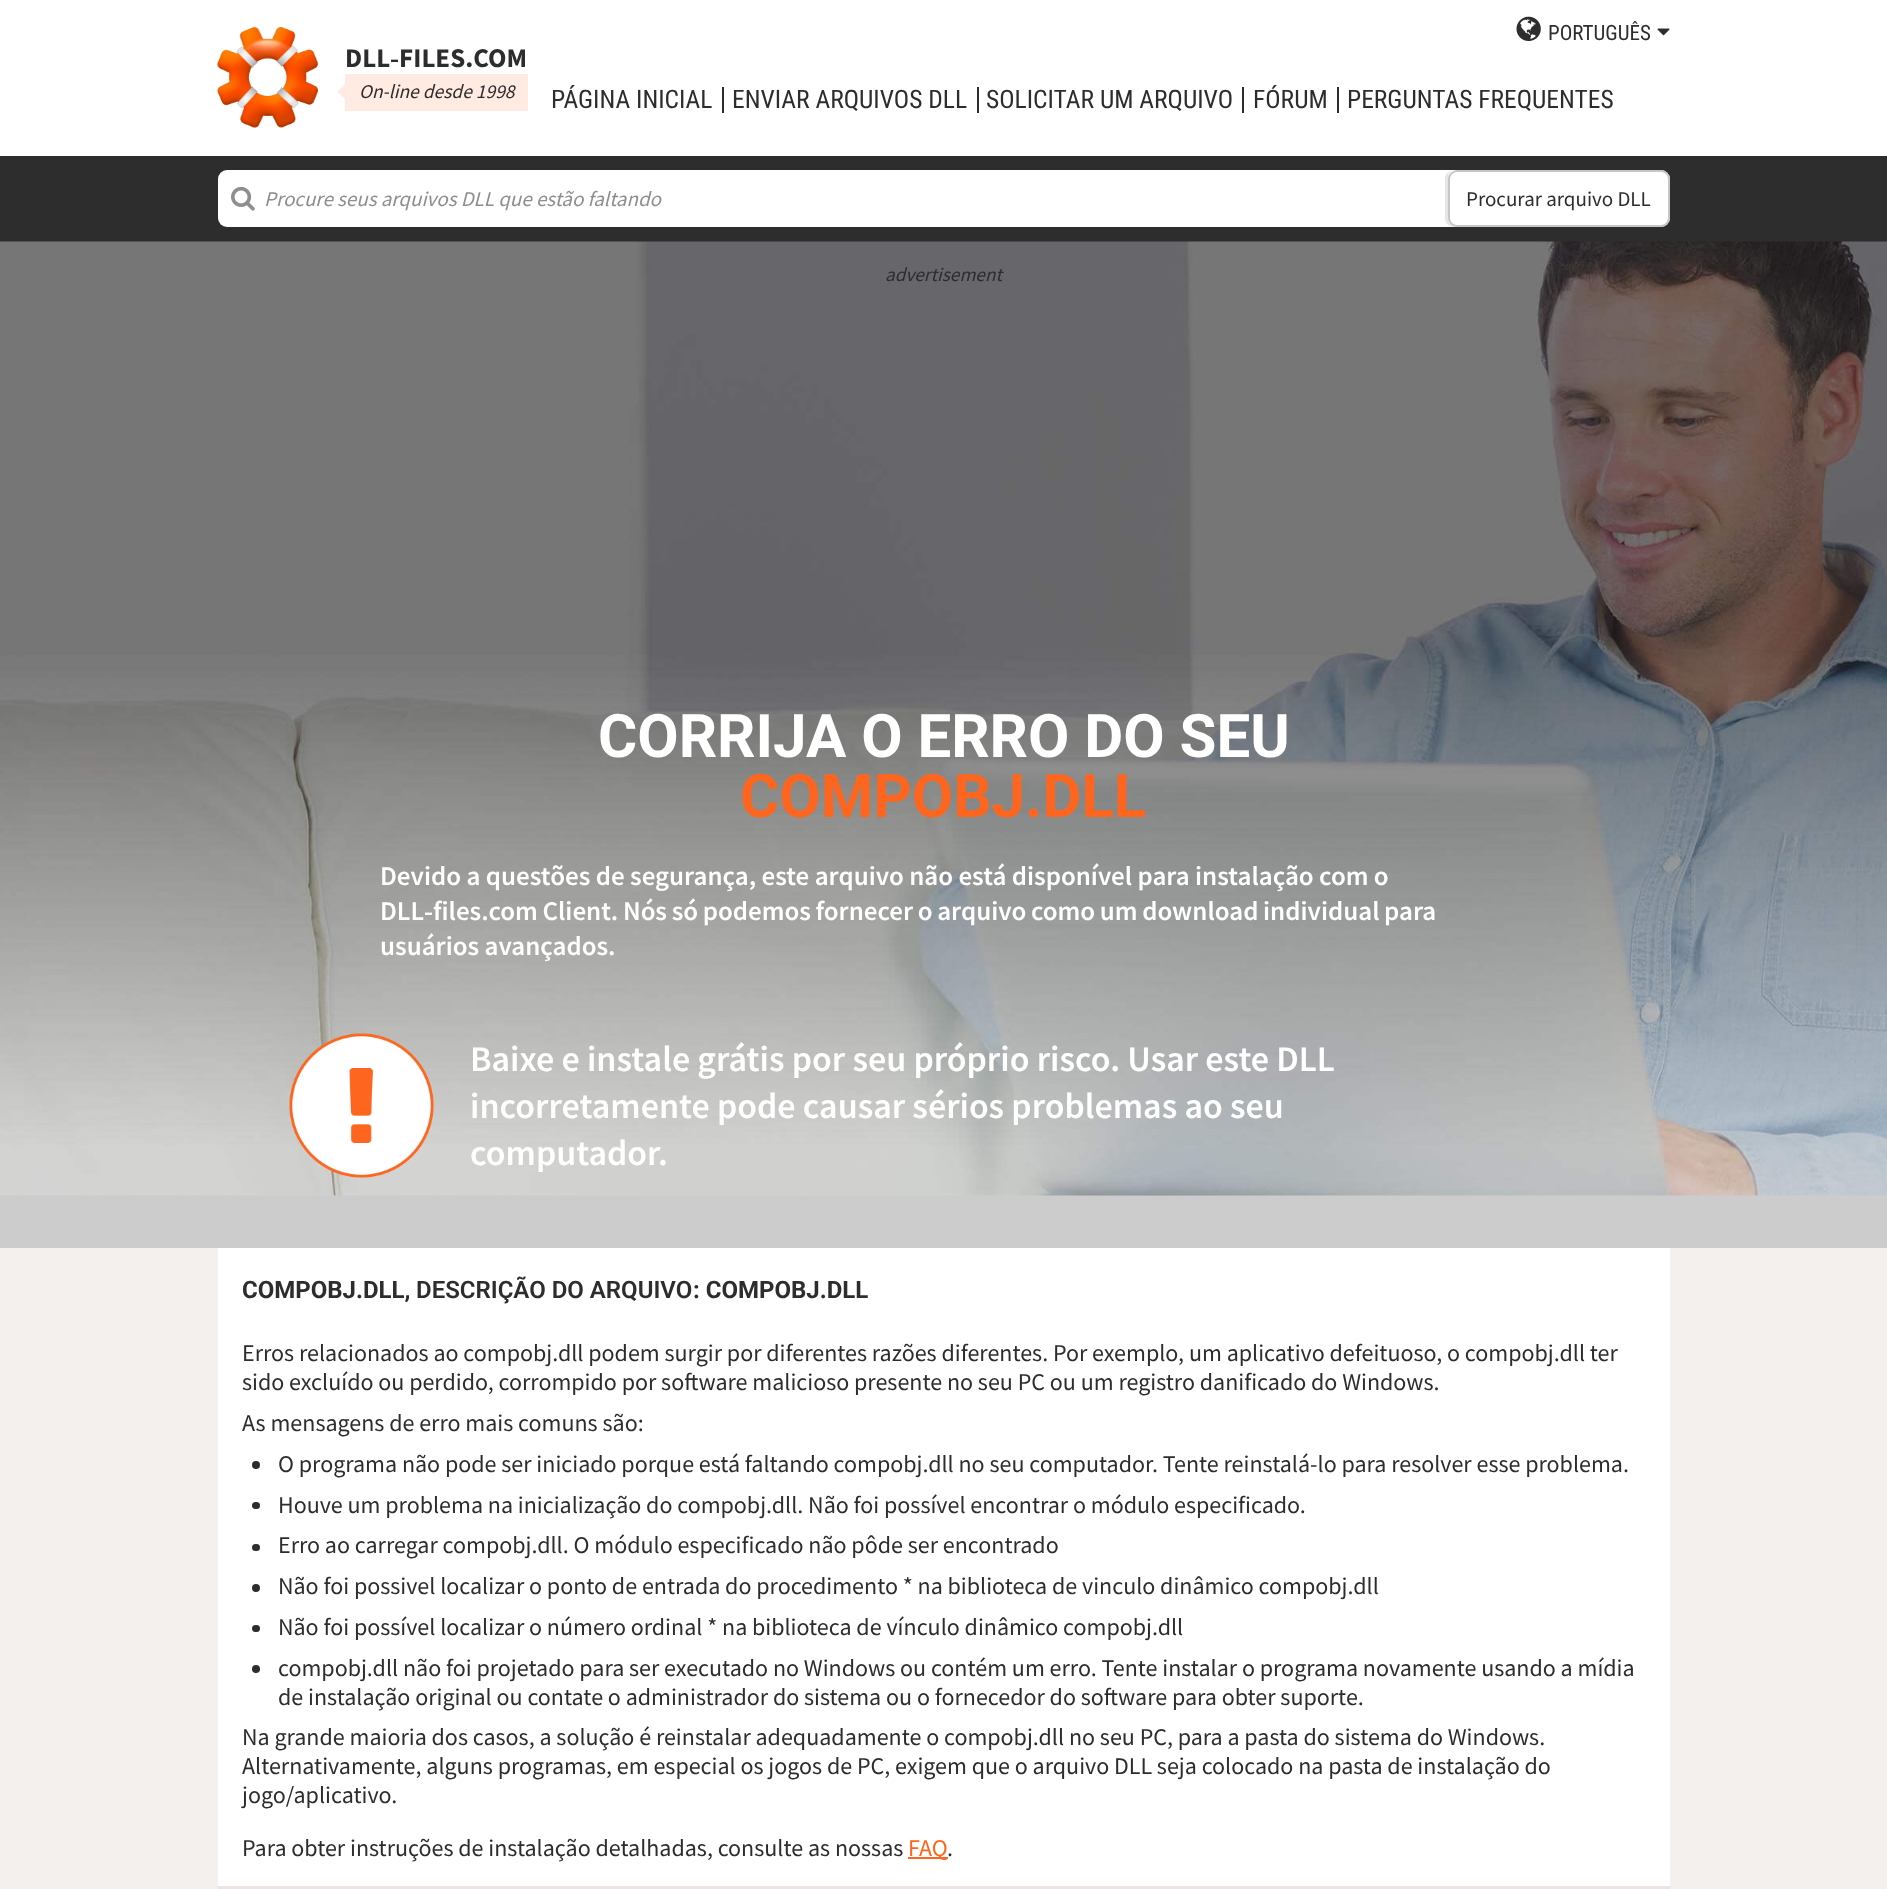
<svg xmlns="http://www.w3.org/2000/svg" xmlns:xlink="http://www.w3.org/1999/xlink" width="1887" height="1889" viewBox="0 0 1887 1889">
<style>
.cls-1{font:bold 27px Source Sans Pro;fill:#2d2d2d}
.cls-2{font:italic 19.5px Source Sans Pro;fill:#2d2d2d}
.cls-3{font:21px Roboto Condensed;fill:#2d2d2d}
.cls-4{font:25.5px Roboto Condensed;fill:#2d2d2d}
.cls-5{font:italic 21px Source Sans Pro;fill:#8e8e8e}
.cls-6{font:21px Source Sans Pro;fill:#2d2d2d}
.cls-7{font:italic 19.25px Source Sans Pro;fill:#2d2d2d}
.cls-8{font:bold 60px Roboto;fill:#ffffff}
.cls-9{font:bold 60px Roboto;fill:#fe661f}
.cls-10{font:600 27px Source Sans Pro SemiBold;fill:#ffffff}
.cls-11{font:600 36px Source Sans Pro SemiBold;fill:#ffffff}
.cls-12{font:bold 24px Roboto;fill:#2d2d2d}
.cls-13{font:600 24px Roboto;fill:#2d2d2d}
.cls-14{font:24px Source Sans Pro;fill:#2d2d2d}
.cls-15{font:24px Source Sans Pro;fill:#fe661f}
</style>
<rect width="100%" height="100%" fill="#ffffff"/>
<image xlink:href="image0.png" x="217" y="27" width="101" height="101"/>
<rect fill="#ffebe1" x="345" y="74" width="183" height="37"/>
<path fill="#ffebe1" d="M345 84V99L337.5 91.5Z"/>
<image xlink:href="image1.png" x="1516" y="16" width="25" height="25"/>
<image xlink:href="image2.png" x="1657" y="28" width="13" height="8"/>
<rect fill="#2d2d2d" x="722" y="87" width="2" height="26"/>
<rect fill="#2d2d2d" x="977" y="87" width="2" height="26"/>
<rect fill="#2d2d2d" x="1242" y="87" width="2" height="26"/>
<rect fill="#2d2d2d" x="1337" y="87" width="2" height="26"/>
<rect fill="#2d2d2d" x="0" y="156" width="1887" height="86"/>
<rect fill="#ffffff" x="218" y="170" width="1452" height="57" rx="9"/>
<image xlink:href="image3.png" x="231" y="186" width="24" height="25"/>
<path fill="#e6e6e6" d="M1453 170C1448 171 1445 174 1445 179V218C1445 223 1449 227 1454 227H1658L1661 226H1456C1451 226 1448 223 1448 218V178C1448 174 1450 171 1453 170Z"/>
<rect fill="#ffffff" stroke="#c6c6c6" stroke-width="2" x="1449" y="171" width="220" height="55" rx="8"/>
<rect fill="#cccccc" x="0" y="1195" width="1887" height="53"/>
<image xlink:href="image4.png" x="0" y="241" width="1887" height="955"/>
<image xlink:href="image5.png" x="289" y="1033" width="145" height="145"/>
<rect fill="#f4f0ee" x="0" y="1248" width="1887" height="641"/>
<rect fill="#ffffff" x="218" y="1248" width="1452" height="638"/>
<rect fill="#ede5e1" x="218" y="1886" width="1452" height="3"/>
<circle fill="#2d2d2d" cx="256" cy="1465" r="4"/>
<rect fill="#2d2d2d" x="252" y="1502" width="8" height="7" rx="3.5"/>
<rect fill="#2d2d2d" x="252" y="1544" width="8" height="7" rx="3.5"/>
<circle fill="#2d2d2d" cx="256" cy="1588" r="4"/>
<rect fill="#2d2d2d" x="252" y="1625" width="8" height="7" rx="3.5"/>
<circle fill="#2d2d2d" cx="256" cy="1669" r="4"/>
<rect fill="#fe661f" x="908" y="1857" width="40" height="2"/>
<text class="cls-1" x="345" y="67">DLL‑FILES.COM</text>
<text class="cls-2" x="359" y="98">On-line desde 1998</text>
<text class="cls-3" x="1548" y="40">PORTUGUÊS</text>
<text class="cls-4" x="551" y="108">PÁGINA INICIAL</text>
<text class="cls-4" x="732" y="108">ENVIAR ARQUIVOS DLL</text>
<text class="cls-4" x="986" y="108">SOLICITAR UM ARQUIVO</text>
<text class="cls-4" x="1253" y="108">FÓRUM</text>
<text class="cls-4" x="1347" y="108">PERGUNTAS FREQUENTES</text>
<text class="cls-5" x="264" y="206">Procure seus arquivos DLL que estão faltando</text>
<text class="cls-6" x="1466" y="206">Procurar arquivo DLL</text>
<text class="cls-7" x="885" y="281">advertisement</text>
<text class="cls-8" x="598" y="757">CORRIJA O ERRO DO SEU</text>
<text class="cls-9" x="740" y="817">COMPOBJ.DLL</text>
<text class="cls-10"><tspan x="380" y="885">Devido a questões de segurança, este arquivo não está disponível para instalação com o</tspan><tspan x="380" y="920" word-spacing="-0.75">DLL‑files.com Client. Nós só podemos fornecer o arquivo como um download individual para</tspan><tspan x="380" y="955">usuários avançados.</tspan></text>
<text class="cls-11"><tspan x="470" y="1071">Baixe e instale grátis por seu próprio risco. Usar este DLL</tspan><tspan x="470" y="1118">incorretamente pode causar sérios problemas ao seu</tspan><tspan x="470" y="1165">computador.</tspan></text>
<text class="cls-12" x="242" y="1298">COMPOBJ.DLL,</text>
<text class="cls-13" x="416" y="1298">DESCRIÇÃO DO ARQUIVO</text>
<text class="cls-12" x="693" y="1298">: COMPOBJ.DLL</text>
<text class="cls-14"><tspan x="242" y="1361">Erros relacionados ao compobj.dll podem surgir por diferentes razões diferentes. Por exemplo, um aplicativo defeituoso, o compobj.dll ter</tspan><tspan x="242" y="1390">sido excluído ou perdido, corrompido por software malicioso presente no seu PC ou um registro danificado do Windows.</tspan><tspan x="242" y="1431">As mensagens de erro mais comuns são:</tspan></text>
<text class="cls-14"><tspan x="278" y="1472">O programa não pode ser iniciado porque está faltando compobj.dll no seu computador. Tente reinstalá-lo para resolver esse problema.</tspan><tspan x="278" y="1513">Houve um problema na inicialização do compobj.dll. Não foi possível encontrar o módulo especificado.</tspan><tspan x="278" y="1553">Erro ao carregar compobj.dll. O módulo especificado não pôde ser encontrado</tspan><tspan x="278" y="1594">Não foi possivel localizar o ponto de entrada do procedimento * na biblioteca de vinculo dinâmico compobj.dll</tspan><tspan x="278" y="1635">Não foi possível localizar o número ordinal * na biblioteca de vínculo dinâmico compobj.dll</tspan><tspan x="278" y="1676">compobj.dll não foi projetado para ser executado no Windows ou contém um erro. Tente instalar o programa novamente usando a mídia</tspan><tspan x="278" y="1705">de instalação original ou contate o administrador do sistema ou o fornecedor do software para obter suporte.</tspan></text>
<text class="cls-14"><tspan x="242" y="1745">Na grande maioria dos casos, a solução é reinstalar adequadamente o compobj.dll no seu PC, para a pasta do sistema do Windows.</tspan><tspan x="242" y="1774">Alternativamente, alguns programas, em especial os jogos de PC, exigem que o arquivo DLL seja colocado na pasta de instalação do</tspan><tspan x="242" y="1803">jogo/aplicativo.</tspan></text>
<text class="cls-14" x="242" y="1856">Para obter instruções de instalação detalhadas, consulte as nossas</text>
<text class="cls-15" x="908" y="1856">FAQ</text>
<text class="cls-14" x="947" y="1856">.</text>
</svg>
